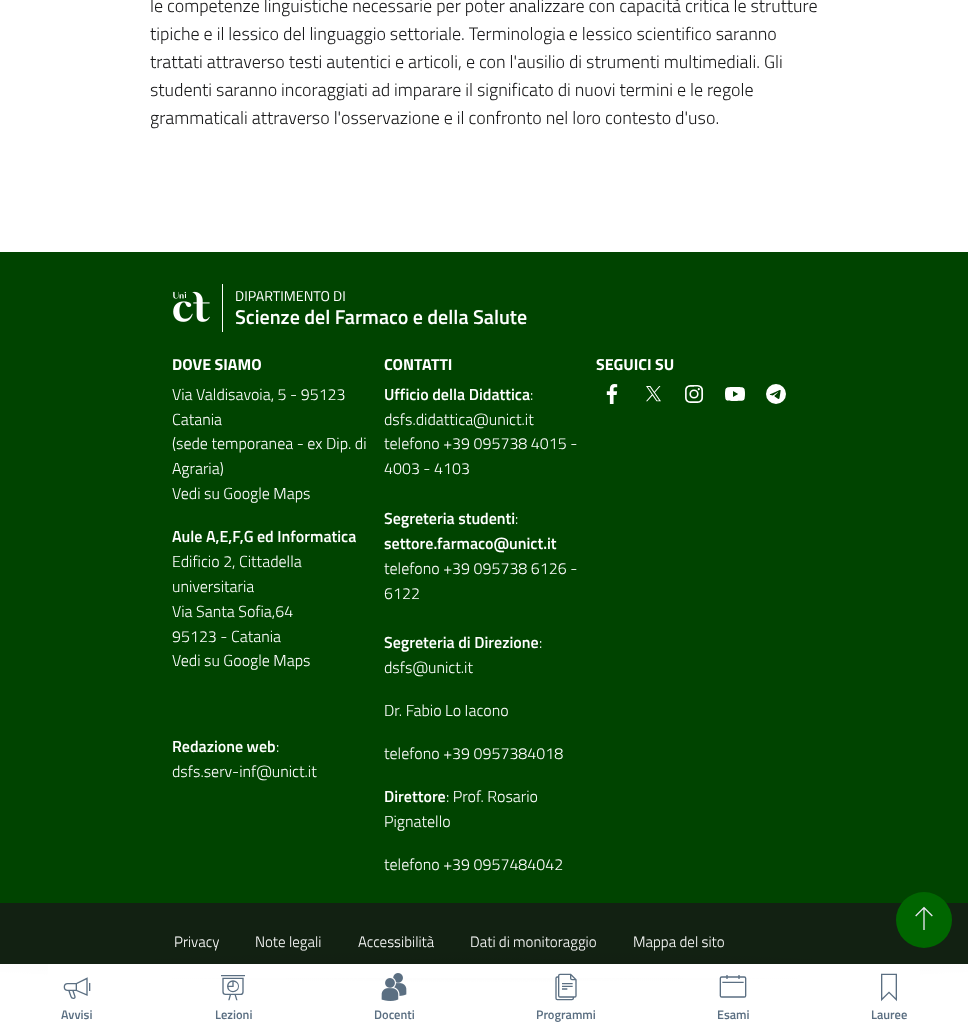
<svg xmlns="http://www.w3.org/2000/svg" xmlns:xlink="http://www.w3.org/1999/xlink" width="968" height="1028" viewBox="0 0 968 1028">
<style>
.cls-1{font:300 18px Titillium Web;fill:#19191a}
.cls-2{font:14.25px Titillium Web;fill:#ffffff}
.cls-3{font:600 20px Titillium Web;fill:#ffffff}
.cls-4{font:bold 16px Titillium Web;fill:#ffffff}
.cls-5{font:300 16px Titillium Web;fill:#ffffff}
.cls-6{font:600 16px Titillium Web;fill:#ffffff}
.cls-7{font:300 15px Titillium Web;fill:#ffffff}
.cls-8{font:600 12.5px Titillium Web;fill:#5b6f82}
</style>
<defs>
<radialGradient id="g1" gradientUnits="userSpaceOnUse" cx="0" cy="0" r="1" gradientTransform="matrix(958 0 0 31 484 964)"><stop offset="0" stop-color="#000000" stop-opacity="0.04"/><stop offset="0.6" stop-color="#000000" stop-opacity="0"/></radialGradient>
</defs>
<rect width="100%" height="100%" fill="#ffffff"/>
<rect fill="#004400" x="0" y="252" width="968" height="651"/>
<image xlink:href="image0.png" x="173" y="291" width="37" height="31"/>
<rect fill="#ffffff" x="222" y="284" width="1" height="48"/>
<image xlink:href="image1.png" x="606" y="384" width="12" height="20"/>
<image xlink:href="image2.png" x="646" y="386" width="15" height="16"/>
<image xlink:href="image3.png" x="685" y="385" width="19" height="18"/>
<image xlink:href="image4.png" x="725" y="387" width="20" height="14"/>
<image xlink:href="image5.png" x="766" y="384" width="20" height="20"/>
<rect fill="#122112" x="0" y="903" width="968" height="61"/>
<circle fill="#006600" cx="924" cy="920" r="28"/>
<image xlink:href="image6.png" x="915" y="906" width="18" height="24"/>
<ellipse fill="url(#g1)" cx="484" cy="964" rx="677.5" ry="21.5"/>
<rect fill="#ffffff" x="48" y="964" width="872" height="14"/>
<image xlink:href="image7.png" x="63" y="977" width="28" height="22"/>
<image xlink:href="image8.png" x="221" y="975" width="24" height="26"/>
<image xlink:href="image9.png" x="381" y="973" width="26" height="28"/>
<image xlink:href="image10.png" x="555" y="973" width="22" height="28"/>
<image xlink:href="image11.png" x="719" y="975" width="28" height="23"/>
<image xlink:href="image12.png" x="881" y="973" width="16" height="29"/>
<text class="cls-1"><tspan x="150" y="12">le competenze linguistiche necessarie per poter analizzare con capacità critica le strutture</tspan><tspan x="150" y="40">tipiche e il lessico del linguaggio settoriale. Terminologia e lessico scientifico saranno</tspan><tspan x="150" y="68">trattati attraverso testi autentici e articoli, e con l'ausilio di strumenti multimediali. Gli</tspan><tspan x="150" y="96">studenti saranno incoraggiati ad imparare il significato di nuovi termini e le regole</tspan><tspan x="150" y="124">grammaticali attraverso l'osservazione e il confronto nel loro contesto d'uso.</tspan></text>
<text class="cls-2" x="235" y="301">DIPARTIMENTO DI</text>
<text class="cls-3" x="235" y="324">Scienze del Farmaco e della Salute</text>
<text class="cls-4" x="172" y="370">DOVE SIAMO</text>
<text class="cls-5"><tspan x="172" y="400">Via Valdisavoia, 5 - 95123</tspan><tspan x="172" y="425">Catania</tspan><tspan x="172" y="449">(sede temporanea - ex Dip. di</tspan><tspan x="172" y="474">Agraria)</tspan><tspan x="172" y="499">Vedi su Google Maps</tspan></text>
<text class="cls-6" x="172" y="542">Aule A,E,F,G ed Informatica</text>
<text class="cls-5"><tspan x="172" y="567">Edificio 2, Cittadella</tspan><tspan x="172" y="592">universitaria</tspan><tspan x="172" y="617">Via Santa Sofia,64</tspan><tspan x="172" y="642">95123 - Catania</tspan><tspan x="172" y="666">Vedi su Google Maps</tspan></text>
<text class="cls-6" x="172" y="752">Redazione web</text>
<text class="cls-5" x="276" y="752">:</text>
<text class="cls-5" x="172" y="777">dsfs.serv-inf@unict.it</text>
<text class="cls-4" x="384" y="370">CONTATTI</text>
<text class="cls-6" x="384" y="400">Ufficio della Didattica</text>
<text class="cls-5" x="530" y="400">:</text>
<text class="cls-5"><tspan x="384" y="425">dsfs.didattica@unict.it</tspan><tspan x="384" y="449">telefono +39 095738 4015 -</tspan><tspan x="384" y="474">4003 - 4103</tspan></text>
<text class="cls-6" x="384" y="524">Segreteria studenti</text>
<text class="cls-5" x="515" y="524">:</text>
<text class="cls-6" x="384" y="549">settore.farmaco@unict.it</text>
<text class="cls-5"><tspan x="384" y="574">telefono +39 095738 6126 -</tspan><tspan x="384" y="599">6122</tspan></text>
<text class="cls-6" x="384" y="648">Segreteria di Direzione</text>
<text class="cls-5" x="539" y="648">:</text>
<text class="cls-5" x="384" y="673">dsfs@unict.it</text>
<text class="cls-5" x="384" y="716">Dr. Fabio Lo Iacono</text>
<text class="cls-5" x="384" y="759">telefono +39 0957384018</text>
<text class="cls-6" x="384" y="802">Direttore</text>
<text class="cls-5" x="446" y="802">: Prof. Rosario</text>
<text class="cls-5" x="384" y="827">Pignatello</text>
<text class="cls-5" x="384" y="870">telefono +39 0957484042</text>
<text class="cls-4" x="596" y="370">SEGUICI SU</text>
<text class="cls-7" x="174" y="947">Privacy</text>
<text class="cls-7" x="255" y="947">Note legali</text>
<text class="cls-7" x="358" y="947">Accessibilità</text>
<text class="cls-7" x="470" y="947">Dati di monitoraggio</text>
<text class="cls-7" x="633" y="947">Mappa del sito</text>
<text class="cls-8" x="61" y="1019">Avvisi</text>
<text class="cls-8" x="215" y="1019">Lezioni</text>
<text class="cls-8" x="374" y="1019">Docenti</text>
<text class="cls-8" x="536" y="1019">Programmi</text>
<text class="cls-8" x="717" y="1019">Esami</text>
<text class="cls-8" x="871" y="1019">Lauree</text>
</svg>
